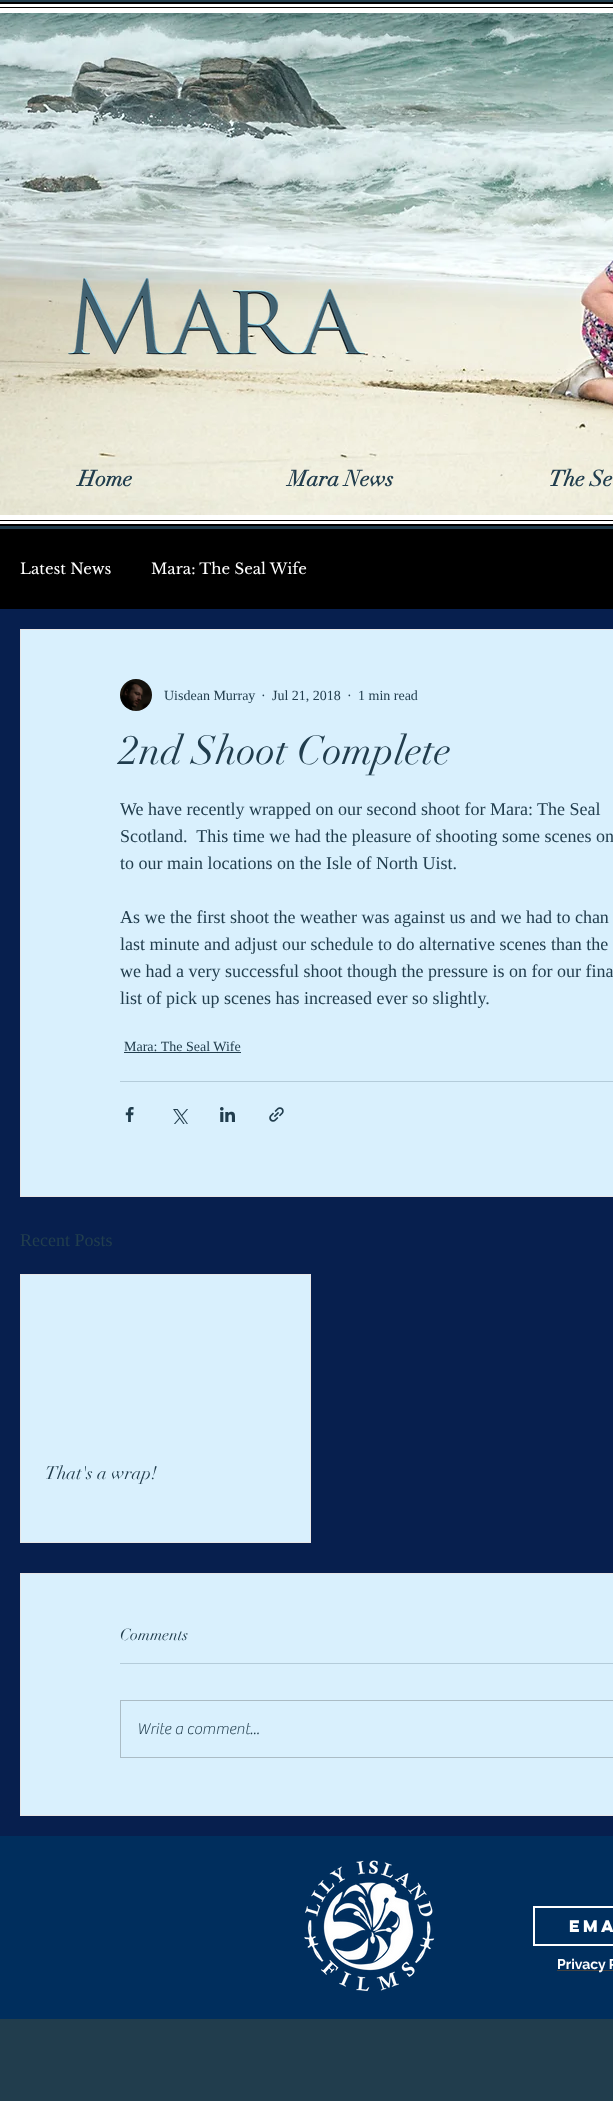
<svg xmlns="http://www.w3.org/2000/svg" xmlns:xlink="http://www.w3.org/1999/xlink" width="613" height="2101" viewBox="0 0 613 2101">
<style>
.cls-1{font:bold 22px didot;fill:#213d4d}
.cls-2{font:15px Libre Baskerville;fill:#ffffff}
.cls-3{font:14px Liberation Serif;fill:#213d4d}
.cls-4{font:40px didot;fill:#213d4d}
.cls-5{font:18px Liberation Serif;fill:#213d4d}
.cls-6{font:18px didot;fill:#213d4d}
.cls-7{font:16px didot;fill:#213d4d}
.cls-8{font:100 16px 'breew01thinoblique';fill:#213d4d}
.cls-9{font:bold 15px 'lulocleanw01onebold';fill:#ffffff}
.cls-10{font:bold 14px Raleway;fill:#ffffff}
</style>
<defs>
<clipPath id="clip1"><rect x="45" y="1462" width="241" height="22"/></clipPath>
</defs>
<rect width="100%" height="100%" fill="#213d4d"/>
<rect fill="#ffffff" stroke="#000000" stroke-width="2" x="-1" y="3" width="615" height="522"/>
<image xlink:href="image0.png" x="0" y="13" width="613" height="502"/>
<rect fill="none" stroke="#000000" x="-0.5" y="7.5" width="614" height="513"/>
<image xlink:href="image1.png" x="68" y="278" width="297" height="77"/>
<rect fill="#071f4e" x="0" y="609" width="613" height="1227"/>
<rect fill="#000000" x="0" y="529" width="613" height="80"/>
<rect fill="#d9f0fd" stroke="#e8e6e6" x="20.5" y="629.5" width="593" height="567"/>
<image xlink:href="image2.png" x="120" y="679" width="32" height="32"/>
<rect fill="#213d4d" x="124" y="1052" width="117" height="1"/>
<rect fill="#b4ccda" x="120" y="1081" width="493" height="1"/>
<image xlink:href="image3.png" x="125" y="1107" width="9" height="15"/>
<image xlink:href="image4.png" x="173" y="1109" width="15" height="15"/>
<image xlink:href="image5.png" x="220" y="1107" width="15" height="15"/>
<image xlink:href="image6.png" x="269" y="1107" width="15" height="15"/>
<rect fill="#d9f0fd" stroke="#e8e6e6" x="20.5" y="1274.5" width="290" height="268"/>
<rect fill="#d9f0fd" stroke="#e8e6e6" x="20.5" y="1573.5" width="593" height="242"/>
<rect fill="#b4ccda" x="120" y="1663" width="493" height="1"/>
<rect fill="none" stroke="#abbcc5" x="120.5" y="1700.5" width="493" height="57"/>
<rect fill="#002e5d" x="0" y="1836" width="613" height="183"/>
<image xlink:href="image7.png" x="304" y="1860" width="131" height="132"/>
<rect fill="none" stroke="#ffffff" stroke-width="2" x="534" y="1907" width="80" height="38"/>
<rect fill="#414141" x="557" y="1970" width="56" height="1"/>
<text class="cls-1" x="78" y="486">Home</text>
<text class="cls-1" x="288" y="486">Mara News</text>
<text class="cls-1" x="549" y="486">The Se</text>
<text class="cls-2" x="20" y="574">Latest News</text>
<text class="cls-2" x="151" y="574">Mara: The Seal Wife</text>
<text class="cls-3" x="164" y="700">Uisdean Murray</text>
<text class="cls-3" x="261" y="700">·</text>
<text class="cls-3" x="272" y="700">Jul 21, 2018</text>
<text class="cls-3" x="347" y="700">·</text>
<text class="cls-3" x="358" y="700">1 min read</text>
<text class="cls-4" x="120" y="764">2nd Shoot Complete</text>
<text class="cls-5" xml:space="preserve"><tspan x="120" y="815">We have recently wrapped on our second shoot for Mara: The Seal</tspan><tspan x="120" y="842">Scotland.  This time we had the pleasure of shooting some scenes on</tspan><tspan x="120" y="869">to our main locations on the Isle of North Uist.</tspan></text>
<text class="cls-5"><tspan x="120" y="923">As we the first shoot the weather was against us and we had to chan</tspan><tspan x="120" y="950">last minute and adjust our schedule to do alternative scenes than the</tspan><tspan x="120" y="977">we had a very successful shoot though the pressure is on for our fina</tspan><tspan x="120" y="1004">list of pick up scenes has increased ever so slightly.</tspan></text>
<text class="cls-3" x="124" y="1051">Mara: The Seal Wife</text>
<text class="cls-5" x="20" y="1246">Recent Posts</text>
<g clip-path="url(#clip1)">
<text class="cls-6" x="45" y="1479">That's a wrap!</text>
</g>
<text class="cls-7" x="120" y="1640">Comments</text>
<text class="cls-8" x="137" y="1734">Write a comment...</text>
<text class="cls-9" x="569" y="1932">EMA</text>
<text class="cls-10" x="557" y="1969">Privacy P</text>
</svg>
